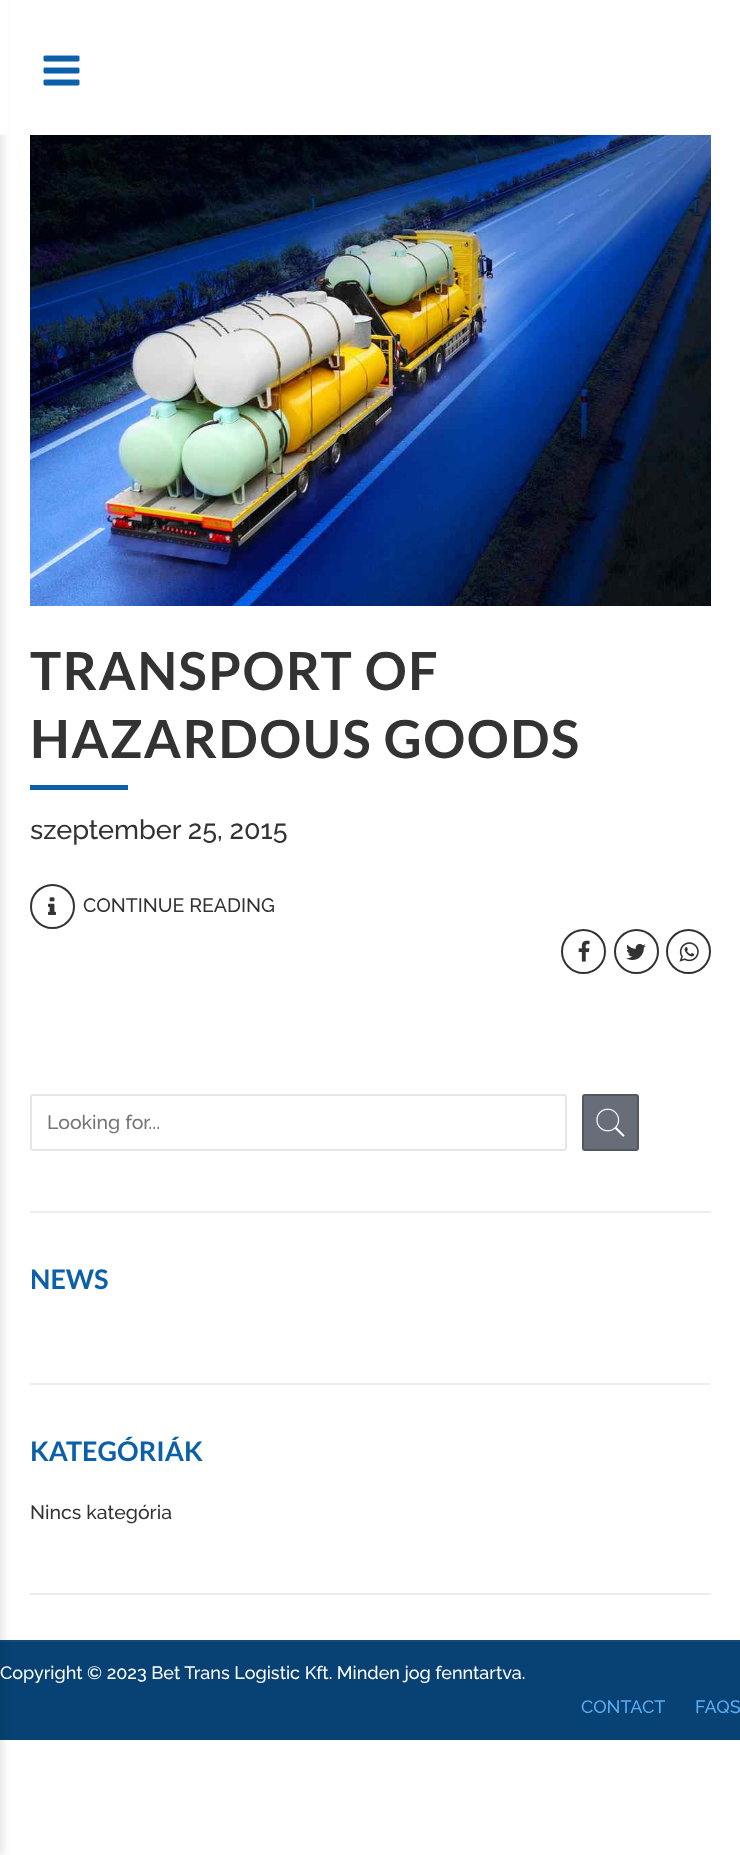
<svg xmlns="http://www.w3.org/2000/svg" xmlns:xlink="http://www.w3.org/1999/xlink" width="740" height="1855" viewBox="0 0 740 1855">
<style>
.cls-1{font:bold 52.5px Lato;letter-spacing:1.5px;fill:#333333}
.cls-2{font:500 27px Raleway;fill:#333333}
.cls-3{font:500 19.5px Raleway;fill:#333333}
.cls-4{font:500 19.5px Raleway;fill:#757575}
.cls-5{font:bold 27px Lato;fill:#0b60a9}
.cls-6{font:500 18px Raleway;fill:#ffffff}
.cls-7{font:500 18px Raleway;fill:#59acf4}
</style>
<rect width="100%" height="100%" fill="#ffffff"/>
<rect fill="#084274" x="0" y="1642" width="740" height="98"/>
<rect fill="#144875" x="0" y="1640" width="740" height="2"/>
<rect fill="#000000" fill-opacity="0.1" filter="blur(4px)" x="-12" y="0" width="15" height="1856"/>
<rect fill="#ffffff" x="0" y="0" width="8" height="135"/>
<image xlink:href="image0.png" x="43" y="55" width="37" height="31"/>
<image xlink:href="image1.png" x="30" y="135" width="681" height="471"/>
<rect fill="#0b60a9" x="30" y="785" width="98" height="5"/>
<circle fill="none" stroke="#333333" stroke-width="2" cx="52.5" cy="906.5" r="21.5"/>
<image xlink:href="image2.png" x="48" y="897" width="9" height="18"/>
<circle fill="none" stroke="#333333" stroke-width="2" cx="583.5" cy="951.5" r="21.5"/>
<image xlink:href="image3.png" x="578" y="940" width="12" height="22"/>
<circle fill="none" stroke="#333333" stroke-width="2" cx="636.5" cy="951.5" r="21.5"/>
<image xlink:href="image4.png" x="626" y="943" width="20" height="17"/>
<circle fill="none" stroke="#333333" stroke-width="2" cx="688.5" cy="951.5" r="21.5"/>
<image xlink:href="image5.png" x="679" y="942" width="20" height="20"/>
<rect fill="#ededed" x="30" y="1211" width="681" height="2"/>
<rect fill="none" stroke="#e6e6e6" stroke-width="2" x="31" y="1095" width="535" height="55" rx="2"/>
<rect fill="#686d7a" stroke="#535761" stroke-width="2" x="583" y="1095" width="55" height="55" rx="2"/>
<image xlink:href="image6.png" x="596" y="1108" width="29" height="29"/>
<rect fill="#ededed" x="30" y="1383" width="681" height="2"/>
<rect fill="#ededed" x="30" y="1593" width="681" height="2"/>
<text class="cls-1"><tspan x="30" y="690">TRANSPORT OF</tspan><tspan x="30" y="758">HAZARDOUS GOODS</tspan></text>
<text class="cls-2" x="30" y="839">szeptember 25, 2015</text>
<text class="cls-3" x="83" y="912">CONTINUE READING</text>
<text class="cls-4" x="47" y="1129">Looking for...</text>
<text class="cls-5" x="30" y="1289">NEWS</text>
<text class="cls-5" x="30" y="1461">KATEGÓRIÁK</text>
<text class="cls-3" x="30" y="1519">Nincs kategória</text>
<text class="cls-6" x="0" y="1679">Copyright © 2023 Bet Trans Logistic Kft. Minden jog fenntartva.</text>
<text class="cls-7" x="581" y="1713">CONTACT</text>
<text class="cls-7" x="695" y="1713">FAQS</text>
</svg>
